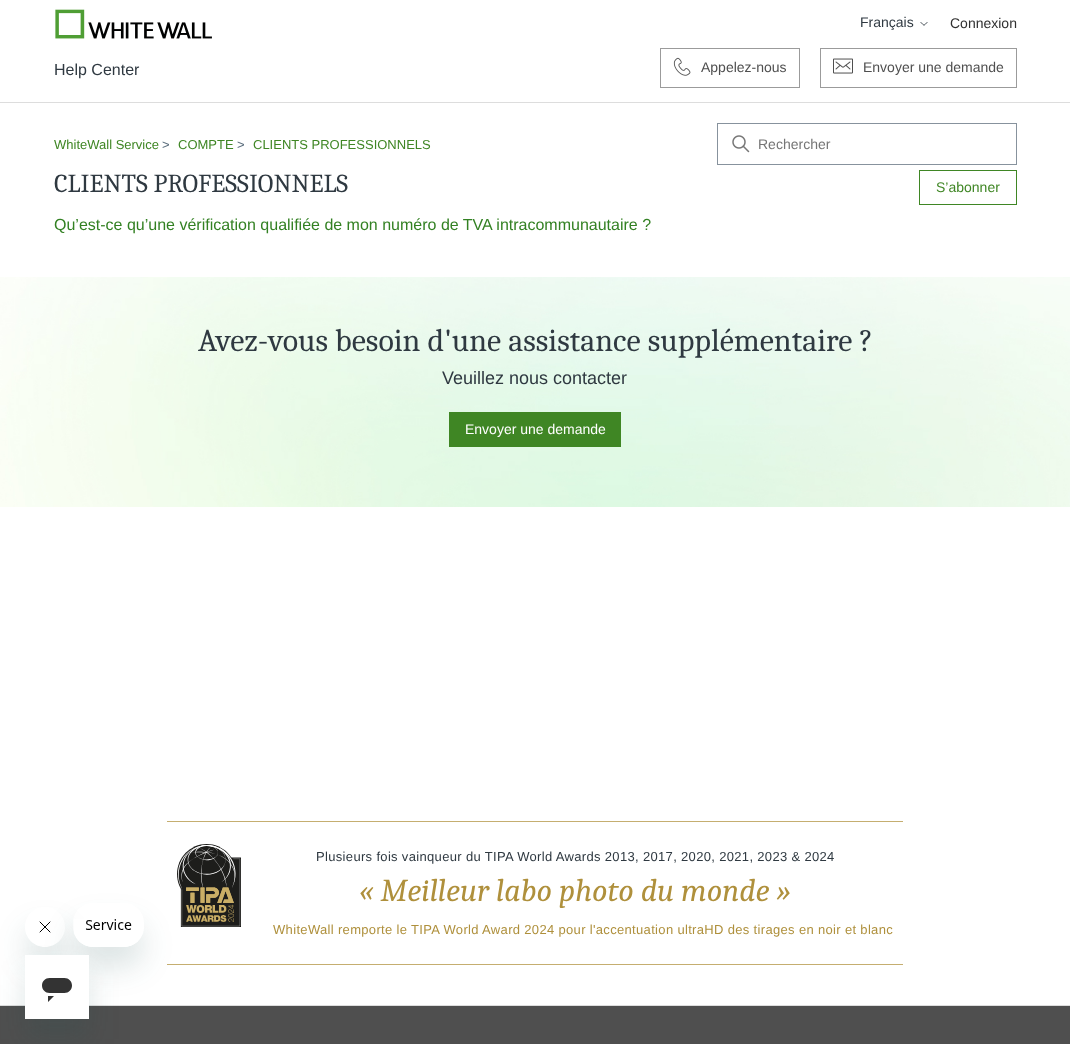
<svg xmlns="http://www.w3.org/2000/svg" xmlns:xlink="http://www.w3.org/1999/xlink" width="1070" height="1044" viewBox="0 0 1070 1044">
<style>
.cls-1{font:14px Liberation Sans;fill:#2f3941}
.cls-2{font:14px Liberation Sans;fill:#303030}
.cls-3{font:16px Liberation Sans;fill:#2f3941}
.cls-4{font:14px Liberation Sans;fill:#4f4f4f}
.cls-5{font:13px Liberation Sans;fill:#3f8624}
.cls-6{font:13px Liberation Sans;fill:#5a6d7c}
.cls-7{font:14px Liberation Sans;fill:#757575}
.cls-8{font:26px Caladea;fill:#2f3941}
.cls-9{font:14px Liberation Sans;fill:#3f8624}
.cls-10{font:16px Liberation Sans;fill:#338123}
.cls-11{font:32px Caladea;fill:#2f3941}
.cls-12{font:18px Liberation Sans;fill:#2f3941}
.cls-13{font:14px Liberation Sans;fill:#ffffff}
.cls-14{font:13px Liberation Sans;letter-spacing:0.33px;fill:#2f3941}
.cls-15{font:italic 32px Caladea;fill:#af903c}
.cls-16{font:13px Liberation Sans;letter-spacing:0.33px;fill:#af903c}
</style>
<defs>
<clipPath id="clip1"><path d="M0 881H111V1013H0ZM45 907C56 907 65 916 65 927C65 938 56 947 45 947C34 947 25 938 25 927C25 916 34 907 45 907Z" clip-rule="evenodd"/></clipPath>
<clipPath id="clip2"><path d="M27 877H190V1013H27ZM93 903H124C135 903 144 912 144 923V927C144 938 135 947 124 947H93C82 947 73 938 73 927V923C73 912 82 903 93 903Z" clip-rule="evenodd"/></clipPath>
</defs>
<rect width="100%" height="100%" fill="#ffffff"/>
<image xlink:href="image0.png" x="55" y="9" width="157" height="30"/>
<path fill="none" stroke="#2f3941" stroke-linecap="round" d="M921 22.5C924.5 26 923.5 26 927 22.5"/>
<rect fill="none" stroke="#9b9b9b" x="660.5" y="48.5" width="139" height="39"/>
<image xlink:href="image1.png" x="673" y="57" width="18" height="19"/>
<rect fill="none" stroke="#9b9b9b" x="820.5" y="48.5" width="196" height="39"/>
<image xlink:href="image2.png" x="833" y="58" width="20" height="16"/>
<rect fill="#dddddd" x="0" y="102" width="1070" height="1"/>
<rect fill="none" stroke="#87929d" x="717.5" y="123.5" width="299" height="41"/>
<image xlink:href="image3.png" x="732" y="135" width="18" height="18"/>
<rect fill="none" stroke="#3f8624" x="919.5" y="170.5" width="97" height="34"/>
<image xlink:href="image4.png" x="0" y="277" width="1070" height="230"/>
<rect fill="#3f8624" x="449" y="412" width="172" height="35"/>
<rect fill="#4f4f4f" x="0" y="1006" width="1070" height="38"/>
<rect fill="#dddddd" x="0" y="1005" width="1070" height="1"/>
<g clip-path="url(#clip1)">
<rect fill="#17494d" fill-opacity="0.15" filter="blur(15px)" x="25" y="927" width="40" height="40" rx="20"/>
</g>
<image xlink:href="image6.png" x="39" y="921" width="12" height="12"/>
<rect fill="#c5ae70" x="167" y="964" width="736" height="1"/>
<image xlink:href="image8.png" x="177" y="844" width="64" height="83"/>
<g clip-path="url(#clip2)">
<rect fill="#17494d" fill-opacity="0.15" filter="blur(15px)" x="73" y="923" width="71" height="44" rx="20"/>
</g>
<image xlink:href="image5.png" x="74" y="919" width="64" height="28"/>
<rect fill="#17494d" fill-opacity="0.15" filter="blur(15px)" x="25" y="975" width="64" height="64"/>
<image xlink:href="image7.png" x="25" y="955" width="64" height="64"/>
<rect fill="#c5ae70" x="167" y="821" width="736" height="1"/>
<text class="cls-1" x="860" y="27">Français</text>
<text class="cls-2" x="950" y="28">Connexion</text>
<text class="cls-3" x="54" y="75">Help Center</text>
<text class="cls-4" x="701" y="72">Appelez-nous</text>
<text class="cls-4" x="863" y="72">Envoyer une demande</text>
<text class="cls-5" x="54" y="149">WhiteWall Service</text>
<text class="cls-6" x="162" y="149">&gt;</text>
<text class="cls-5" x="178" y="149">COMPTE</text>
<text class="cls-6" x="237" y="149">&gt;</text>
<text class="cls-5" x="253" y="149">CLIENTS PROFESSIONNELS</text>
<text class="cls-7" x="758" y="149">Rechercher</text>
<text class="cls-8" x="54" y="192">CLIENTS PROFESSIONNELS</text>
<text class="cls-9" x="936" y="192">S’abonner</text>
<text class="cls-10" x="54" y="230">Qu’est-ce qu’une vérification qualifiée de mon numéro de TVA intracommunautaire ?</text>
<text class="cls-11" x="198" y="351">Avez-vous besoin d'une assistance supplémentaire ?</text>
<text class="cls-12" x="442" y="384">Veuillez nous contacter</text>
<text class="cls-13" x="465" y="434">Envoyer une demande</text>
<text class="cls-14" x="316" y="861">Plusieurs fois vainqueur du TIPA World Awards 2013, 2017, 2020, 2021, 2023 &amp; 2024</text>
<text class="cls-15" x="359" y="901">« Meilleur labo photo du monde »</text>
<text class="cls-16" x="273" y="934">WhiteWall remporte le TIPA World Award 2024 pour l'accentuation ultraHD des tirages en noir et blanc</text>
</svg>
